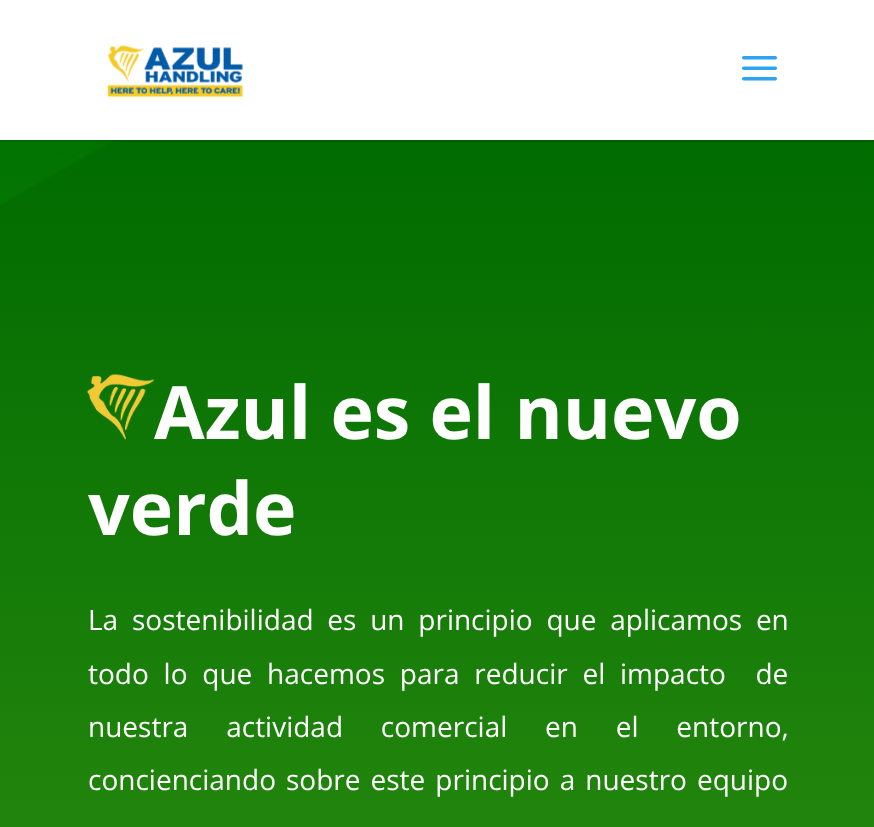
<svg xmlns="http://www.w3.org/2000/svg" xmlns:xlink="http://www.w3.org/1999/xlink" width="874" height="827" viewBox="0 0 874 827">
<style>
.cls-1{font:bold 73.5px Open Sans;fill:#ffffff}
.cls-2{font:28px Open Sans;fill:#ffffff}
</style>
<rect width="100%" height="100%" fill="#ffffff"/>
<image xlink:href="image2.png" x="0" y="140" width="874" height="687"/>
<rect fill="#000000" fill-opacity="0.1" x="0" y="140" width="874" height="2"/>
<image xlink:href="image0.png" x="107" y="45" width="136" height="53"/>
<image xlink:href="image1.png" x="742" y="56" width="35" height="25"/>
<image xlink:href="image3.png" x="87" y="374" width="67" height="66"/>
<text class="cls-1" x="154" y="439">Azul es el nuevo</text>
<text class="cls-1" x="88" y="535">verde</text>
<text class="cls-2" xml:space="preserve"><tspan x="88" y="630" word-spacing="6.5">La sostenibilidad es un principio que aplicamos en</tspan><tspan x="88" y="684" word-spacing="7.5">todo lo que hacemos para reducir el impacto  de</tspan><tspan x="88" y="737" word-spacing="30.5">nuestra actividad comercial en el entorno,</tspan><tspan x="88" y="790" word-spacing="2.75">concienciando sobre este principio a nuestro equipo</tspan></text>
</svg>
